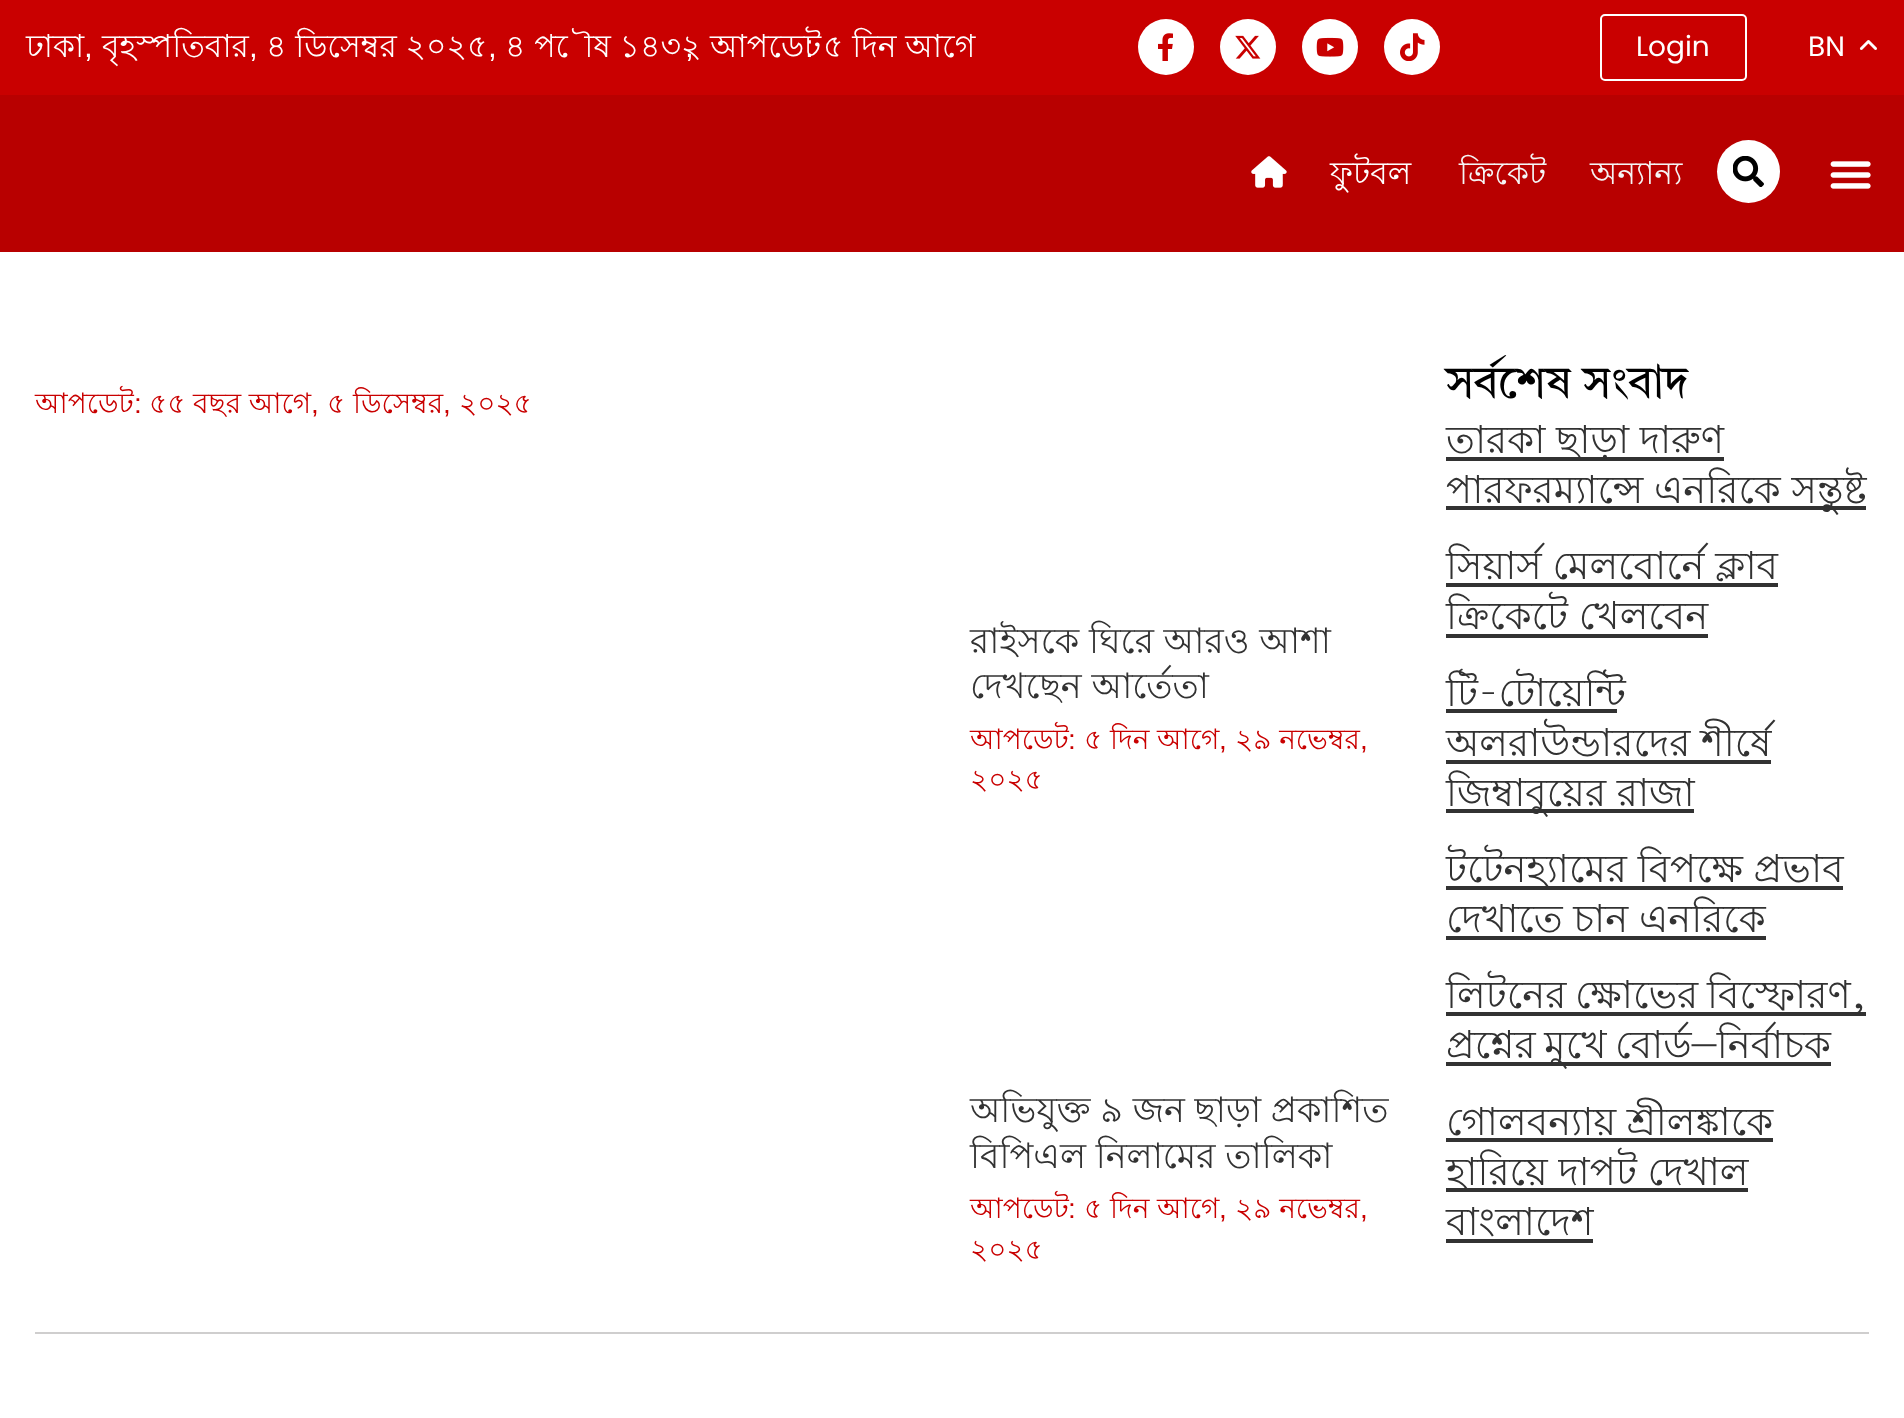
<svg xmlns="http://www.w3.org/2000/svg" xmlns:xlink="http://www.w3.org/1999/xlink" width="1904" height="1418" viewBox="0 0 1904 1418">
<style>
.cls-1{font:31.5px Lohit Bengali;fill:#ffffff}
.cls-2{font:31.5px Liberation Sans;fill:#ffffff}
.cls-3{font:28px Poppins;fill:#ffffff}
.cls-4{font:31.5px Lohit Bengali;fill:#f5f5f5}
.cls-5{font:28px Lohit Bengali;fill:#c90000}
.cls-6{font:28px Liberation Sans;fill:#c90000}
.cls-7{font:35px Lohit Bengali;fill:#323232}
.cls-8{font:45.5px Tiro Bangla;fill:#000000}
.cls-9{font:38.5px Lohit Bengali;fill:#323232}
</style>
<rect width="100%" height="100%" fill="#ffffff"/>
<rect fill="#c90000" x="0" y="0" width="1904" height="95"/>
<circle fill="#ffffff" cx="1166" cy="47" r="28"/>
<image xlink:href="image0.png" x="1158" y="33" width="15" height="28"/>
<circle fill="#ffffff" cx="1248" cy="47" r="28"/>
<image xlink:href="image1.png" x="1235" y="35" width="26" height="24"/>
<circle fill="#ffffff" cx="1330" cy="47" r="28"/>
<image xlink:href="image2.png" x="1316" y="37" width="28" height="20"/>
<circle fill="#ffffff" cx="1412" cy="47" r="28"/>
<image xlink:href="image3.png" x="1400" y="33" width="25" height="28"/>
<rect fill="none" stroke="#ffffff" stroke-width="2" x="1601" y="15" width="145" height="65" rx="4"/>
<image xlink:href="image4.png" x="1859" y="40" width="18" height="10"/>
<rect fill="#b80000" x="0" y="95" width="1904" height="157"/>
<image xlink:href="image5.png" x="1251" y="156" width="36" height="32"/>
<circle fill="#ffffff" cx="1748.5" cy="171.5" r="31.5"/>
<image xlink:href="image6.png" x="1733" y="156" width="31" height="31"/>
<image xlink:href="image7.png" x="1830" y="161" width="41" height="28"/>
<rect fill="#323232" x="1446" y="457" width="278" height="4"/>
<rect fill="#323232" x="1446" y="506" width="420" height="4"/>
<rect fill="#323232" x="1446" y="583" width="332" height="4"/>
<rect fill="#323232" x="1446" y="634" width="262" height="4"/>
<rect fill="#323232" x="1446" y="709" width="171" height="4"/>
<rect fill="#323232" x="1446" y="760" width="325" height="4"/>
<rect fill="#323232" x="1446" y="809" width="248" height="4"/>
<rect fill="#323232" x="1446" y="886" width="397" height="4"/>
<rect fill="#323232" x="1446" y="936" width="320" height="4"/>
<rect fill="#323232" x="1446" y="1012" width="420" height="4"/>
<rect fill="#323232" x="1446" y="1062" width="385" height="4"/>
<rect fill="#323232" x="1446" y="1138" width="327" height="4"/>
<rect fill="#323232" x="1446" y="1188" width="302" height="4"/>
<rect fill="#323232" x="1446" y="1239" width="147" height="4"/>
<rect fill="#cfcece" x="35" y="1332" width="1834" height="2"/>
<text class="cls-1" x="26" y="57">ঢাকা</text>
<text class="cls-2" x="84" y="57">,</text>
<text class="cls-1" x="102" y="57">বৃহস্পতিবার</text>
<text class="cls-2" x="249" y="57">,</text>
<text class="cls-1" x="266" y="57">৪ ডিসেম্বর ২০২৫</text>
<text class="cls-2" x="488" y="57">,</text>
<text class="cls-1" x="505" y="57">৪ পৌষ ১৪৩২ আপডেট</text>
<text class="cls-2" x="685" y="57">,</text>
<text class="cls-2" x="805" y="57">:</text>
<text class="cls-1" x="823" y="57">৫ দিন আগে</text>
<text class="cls-3" x="1636" y="56">Login</text>
<text class="cls-3" x="1808" y="56">BN</text>
<text class="cls-1" x="1330" y="184">ফুটবল</text>
<text class="cls-4" x="1459" y="184">ক্রিকেট</text>
<text class="cls-4" x="1590" y="184">অন্যান্য</text>
<text class="cls-5" x="35" y="413">আপডেট</text>
<text class="cls-6" x="134" y="413">:</text>
<text class="cls-5" x="149" y="413">৫৫ বছর আগে</text>
<text class="cls-6" x="311" y="413">,</text>
<text class="cls-5" x="327" y="413">৫ ডিসেম্বর</text>
<text class="cls-6" x="443" y="413">,</text>
<text class="cls-5" x="459" y="413">২০২৫</text>
<text class="cls-7"><tspan x="970" y="653">রাইসকে ঘিরে আরও আশা</tspan><tspan x="970" y="698">দেখছেন আর্তেতা</tspan></text>
<text class="cls-5" x="970" y="749">আপডেট</text>
<text class="cls-6" x="1068" y="749">:</text>
<text class="cls-5" x="1084" y="749">৫ দিন আগে</text>
<text class="cls-6" x="1219" y="749">,</text>
<text class="cls-5" x="1235" y="749">২৯ নভেম্বর</text>
<text class="cls-6" x="1360" y="749">,</text>
<text class="cls-5" x="970" y="789">২০২৫</text>
<text class="cls-7"><tspan x="970" y="1122">অভিযুক্ত ৯ জন ছাড়া প্রকাশিত</tspan><tspan x="970" y="1168">বিপিএল নিলামের তালিকা</tspan></text>
<text class="cls-5" x="970" y="1218">আপডেট</text>
<text class="cls-6" x="1068" y="1218">:</text>
<text class="cls-5" x="1084" y="1218">৫ দিন আগে</text>
<text class="cls-6" x="1219" y="1218">,</text>
<text class="cls-5" x="1235" y="1218">২৯ নভেম্বর</text>
<text class="cls-6" x="1360" y="1218">,</text>
<text class="cls-5" x="970" y="1259">২০২৫</text>
<text class="cls-8" x="1446" y="397">সর্বশেষ সংবাদ</text>
<text class="cls-9"><tspan x="1446" y="453">তারকা ছাড়া দারুণ</tspan><tspan x="1446" y="503">পারফরম্যান্সে এনরিকে সন্তুষ্ট</tspan><tspan x="1446" y="579">সিয়ার্স মেলবোর্নে ক্লাব</tspan><tspan x="1446" y="629">ক্রিকেটে খেলবেন</tspan></text>
<text class="cls-9"><tspan x="1446" y="706">টি-টোয়েন্টি</tspan><tspan x="1446" y="756">অলরাউন্ডারদের শীর্ষে</tspan><tspan x="1446" y="806">জিম্বাবুয়ের রাজা</tspan><tspan x="1446" y="882">টটেনহ্যামের বিপক্ষে প্রভাব</tspan><tspan x="1446" y="932">দেখাতে চান এনরিকে</tspan><tspan x="1446" y="1008" word-spacing="-2">লিটনের ক্ষোভের বিস্ফোরণ,</tspan><tspan x="1446" y="1058" word-spacing="-2">প্রশ্নের মুখে বোর্ড–নির্বাচক</tspan></text>
<text class="cls-9"><tspan x="1446" y="1135">গোলবন্যায় শ্রীলঙ্কাকে</tspan><tspan x="1446" y="1185">হারিয়ে দাপট দেখাল</tspan><tspan x="1446" y="1235">বাংলাদেশ</tspan></text>
</svg>
